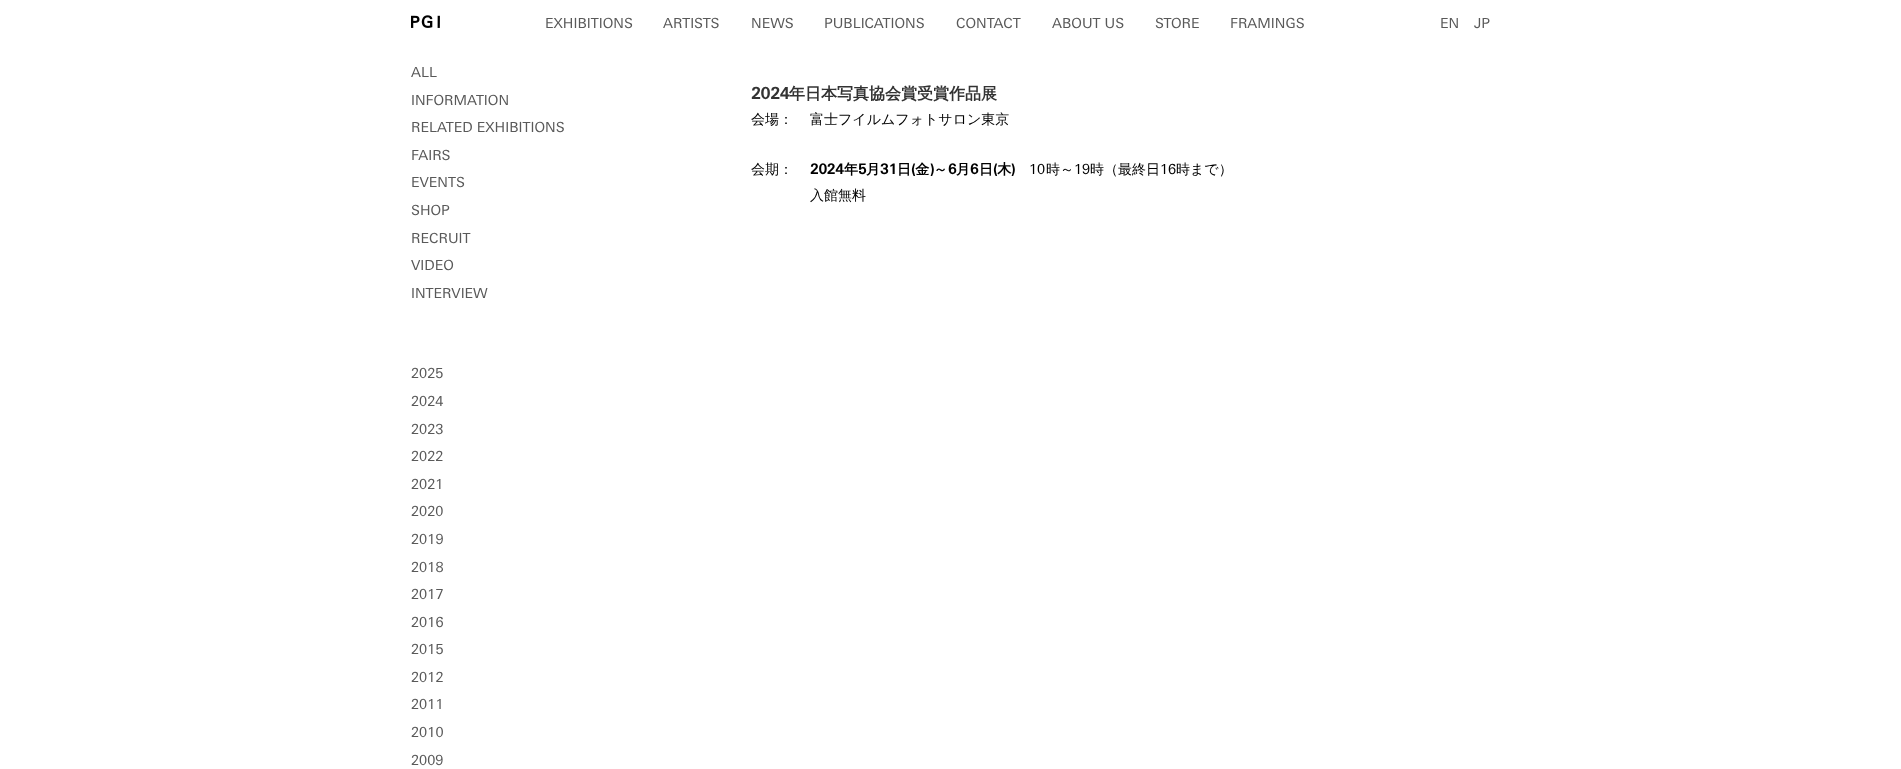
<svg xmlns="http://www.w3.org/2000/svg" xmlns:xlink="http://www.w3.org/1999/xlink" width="1901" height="769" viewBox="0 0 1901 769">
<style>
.cls-1{font:14px 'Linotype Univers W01';fill:#595959}
.cls-2{font:bold 16px 'Linotype Univers W01';fill:#333333}
.cls-3{font:bold 16px WenQuanYi Zen Hei;fill:#333333}
.cls-4{font:500 14px WenQuanYi Zen Hei;fill:#000000}
.cls-5{font:bold 14px 'Linotype Univers W01';fill:#000000}
.cls-6{font:bold 14px WenQuanYi Zen Hei;fill:#000000}
.cls-7{font:14px 'Linotype Univers W01';fill:#000000}
</style>
<rect width="100%" height="100%" fill="#ffffff"/>
<image xlink:href="image0.png" x="411" y="15" width="29" height="13"/>
<text class="cls-1" x="545" y="28">EXHIBITIONS</text>
<text class="cls-1" x="663" y="28">ARTISTS</text>
<text class="cls-1" x="751" y="28">NEWS</text>
<text class="cls-1" x="824" y="28">PUBLICATIONS</text>
<text class="cls-1" x="956" y="28">CONTACT</text>
<text class="cls-1" x="1052" y="28">ABOUT US</text>
<text class="cls-1" x="1155" y="28">STORE</text>
<text class="cls-1" x="1230" y="28">FRAMINGS</text>
<text class="cls-1" x="1440" y="28">EN</text>
<text class="cls-1" x="1474" y="28">JP</text>
<text class="cls-1" x="411" y="77">ALL</text>
<text class="cls-1"><tspan x="411" y="105">INFORMATION</tspan><tspan x="411" y="132">RELATED EXHIBITIONS</tspan></text>
<text class="cls-1"><tspan x="411" y="160">FAIRS</tspan><tspan x="411" y="187">EVENTS</tspan></text>
<text class="cls-1" x="411" y="215">SHOP</text>
<text class="cls-1"><tspan x="411" y="243">RECRUIT</tspan><tspan x="411" y="270">VIDEO</tspan></text>
<text class="cls-1" x="411" y="298">INTERVIEW</text>
<text class="cls-1" x="411" y="378">2025</text>
<text class="cls-1" x="411" y="406">2024</text>
<text class="cls-1"><tspan x="411" y="434">2023</tspan><tspan x="411" y="461">2022</tspan></text>
<text class="cls-1"><tspan x="411" y="489">2021</tspan><tspan x="411" y="516">2020</tspan></text>
<text class="cls-1" x="411" y="544">2019</text>
<text class="cls-1"><tspan x="411" y="572">2018</tspan><tspan x="411" y="599">2017</tspan></text>
<text class="cls-1"><tspan x="411" y="627">2016</tspan><tspan x="411" y="654">2015</tspan></text>
<text class="cls-1"><tspan x="411" y="682">2012</tspan><tspan x="411" y="709">2011</tspan></text>
<text class="cls-1" x="411" y="737">2010</text>
<text class="cls-1" x="411" y="765">2009</text>
<text class="cls-2" x="751" y="99">2024</text>
<text class="cls-3" x="789" y="99">年日本写真協会賞受賞作品展</text>
<text class="cls-4" x="751" y="124">会場：</text>
<text class="cls-4" x="810" y="124">富士フイルムフォトサロン東京</text>
<text class="cls-4" x="751" y="174">会期：</text>
<text class="cls-5" x="810" y="174">2024</text>
<text class="cls-6" x="844" y="174">年</text>
<text class="cls-5" x="858" y="174">5</text>
<text class="cls-6" x="866" y="174">月</text>
<text class="cls-5" x="880" y="174">31</text>
<text class="cls-6" x="897" y="174">日 金 ～</text>
<text class="cls-6" x="979" y="174">日 木</text>
<text class="cls-4" x="1046" y="174">時～</text>
<text class="cls-4" x="1090" y="174">時（最終日</text>
<text class="cls-4" x="1176" y="174">時まで）</text>
<text class="cls-5" x="911" y="174">(</text>
<text class="cls-5" x="930" y="174">)</text>
<text class="cls-5" x="948" y="174">6</text>
<text class="cls-6" x="956" y="174">月</text>
<text class="cls-5" x="970" y="174">6</text>
<text class="cls-5" x="993" y="174">(</text>
<text class="cls-5" x="1011" y="174">)</text>
<text class="cls-7" x="1029" y="174">10</text>
<text class="cls-7" x="1074" y="174">19</text>
<text class="cls-7" x="1160" y="174">16</text>
<text class="cls-4" x="810" y="200">入館無料</text>
</svg>
